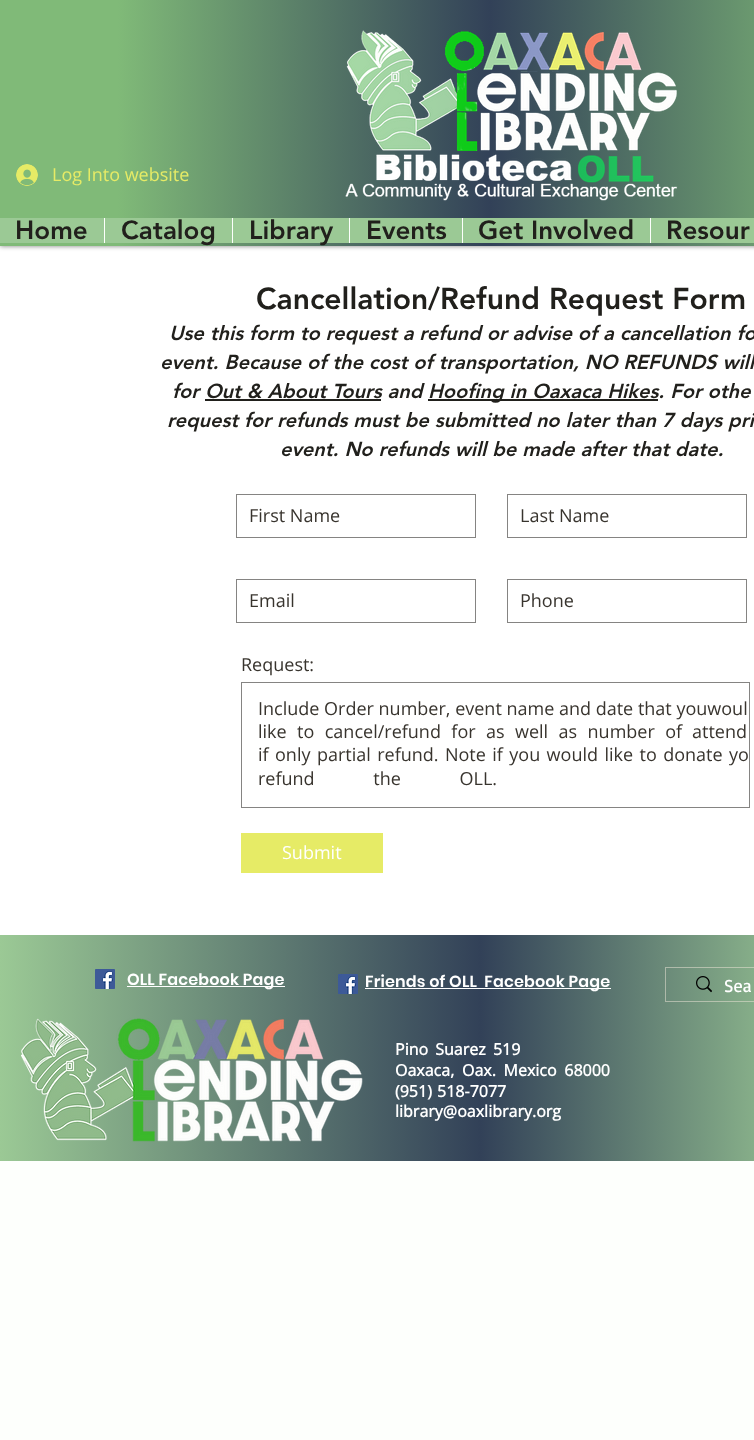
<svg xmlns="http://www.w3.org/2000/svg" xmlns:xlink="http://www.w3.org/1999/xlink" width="754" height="1440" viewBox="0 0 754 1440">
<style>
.cls-1{font:18px Open Sans;fill:#e6eb66}
.cls-2{font:900 26px 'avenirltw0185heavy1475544';fill:#21201c}
.cls-3{font:900 30px 'avenirltw0185heavy1475544';fill:#21201c}
.cls-4{font:italic 900 20px 'avenirltw0185heavy1475544';fill:#21201c}
.cls-5{font:18px Open Sans;fill:#38342e}
.cls-6{font:18px Open Sans;fill:#ffffff}
.cls-7{font:600 16px Poppins;letter-spacing:0.15px;fill:#ffffff}
.cls-8{font:18px Basic;fill:#ffffff}
.cls-9{font:bold 16px Open Sans;fill:#ffffff}
</style>
<defs>
<linearGradient id="g1" gradientUnits="userSpaceOnUse" x1="0" y1="123" x2="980" y2="123"><stop offset="0.12" stop-color="#80ba78"/><stop offset="0.5" stop-color="#324158"/><stop offset="0.87" stop-color="#80ba78"/></linearGradient>
<linearGradient id="g2" gradientUnits="userSpaceOnUse" x1="0" y1="1048" x2="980" y2="1048"><stop offset="0" stop-color="#9bc995"/><stop offset="0.49" stop-color="#324158"/><stop offset="0.84" stop-color="#9bc995"/></linearGradient>
</defs>
<rect width="100%" height="100%" fill="#fdfffc"/>
<rect fill="#ffffff" x="0" y="246" width="754" height="689"/>
<rect fill="#000000" fill-opacity="0.5" filter="blur(2.5px)" x="0" y="0" width="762" height="246"/>
<rect fill="url(#g1)" x="0" y="0" width="754" height="246"/>
<image xlink:href="image0.png" x="16" y="164" width="22" height="22"/>
<image xlink:href="image1.png" x="345" y="30" width="333" height="171"/>
<rect fill="#9bc995" x="0" y="218" width="754" height="25"/>
<rect fill="#fdfffc" x="104" y="218" width="1" height="25"/>
<rect fill="#fdfffc" x="232" y="218" width="1" height="25"/>
<rect fill="#fdfffc" x="349" y="218" width="1" height="25"/>
<rect fill="#fdfffc" x="462" y="218" width="1" height="25"/>
<rect fill="#fdfffc" x="650" y="218" width="1" height="25"/>
<rect fill="#21201c" x="205" y="399" width="176" height="2"/>
<rect fill="#21201c" x="428" y="399" width="162" height="2"/>
<rect fill="#21201c" x="590" y="399" width="68" height="2"/>
<rect fill="none" stroke="#858482" x="236.5" y="494.5" width="239" height="43"/>
<rect fill="none" stroke="#858482" x="507.5" y="494.5" width="239" height="43"/>
<rect fill="none" stroke="#858482" x="236.5" y="579.5" width="239" height="43"/>
<rect fill="none" stroke="#858482" x="507.5" y="579.5" width="239" height="43"/>
<rect fill="none" stroke="#858482" x="241.5" y="682.5" width="508" height="125"/>
<rect fill="#e6eb66" x="241" y="833" width="142" height="40"/>
<rect fill="url(#g2)" x="0" y="935" width="754" height="226"/>
<image xlink:href="image2.png" x="95" y="969" width="20" height="20"/>
<rect fill="#ffffff" x="127" y="986" width="158" height="1"/>
<image xlink:href="image3.png" x="338" y="974" width="20" height="20"/>
<rect fill="#ffffff" x="365" y="988" width="246" height="1"/>
<rect fill="none" stroke="#ebe5d6" stroke-opacity="0.52" x="665.5" y="967.5" width="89" height="34"/>
<image xlink:href="image4.png" x="696" y="976" width="16" height="17"/>
<image xlink:href="image5.png" x="21" y="1018" width="342" height="124"/>
<text class="cls-1" x="52" y="181">Log Into website</text>
<text class="cls-2" x="15" y="239">Home</text>
<text class="cls-2" x="121" y="239">Catalog</text>
<text class="cls-2" x="249" y="239">Library</text>
<text class="cls-2" x="366" y="239">Events</text>
<text class="cls-2" x="478" y="239">Get Involved</text>
<text class="cls-2" x="666" y="239">Resour</text>
<text class="cls-3" x="256" y="309">Cancellation/Refund Request Form</text>
<text class="cls-4" x="169" y="340">Use this form to request a refund or advise of a cancellation fo</text>
<text class="cls-4" x="160" y="369">event. Because of the cost of transportation, NO REFUNDS will</text>
<text class="cls-4" x="172" y="398">for Out &amp; About Tours and</text>
<text class="cls-4" x="428" y="398">Hoofing in Oaxaca Hikes. For othe</text>
<text class="cls-4" x="167" y="427">request for refunds must be submitted no later than 7 days pri</text>
<text class="cls-4" x="280" y="456">event. No refunds will be made after that date.</text>
<text class="cls-5" x="249" y="522">First Name</text>
<text class="cls-5" x="520" y="522">Last Name</text>
<text class="cls-5" x="249" y="607">Email</text>
<text class="cls-5" x="520" y="607">Phone</text>
<text class="cls-5" x="241" y="671">Request:</text>
<text class="cls-5"><tspan x="258" y="715">Include Order number, event name and date that youwoul</tspan><tspan x="258" y="738" word-spacing="5.75">like to cancel/refund for as well as number of</tspan></text>
<text class="cls-5" x="692" y="738">attend</text>
<text class="cls-5" x="258" y="761" word-spacing="1.75">if only partial refund. Note if you would like to donate</text>
<text class="cls-5" x="729" y="761">yo</text>
<text class="cls-5" x="258" y="785" word-spacing="54">refund the OLL.</text>
<text class="cls-6" x="282" y="859">Submit</text>
<text class="cls-7" x="127" y="985">OLL Facebook Page</text>
<text class="cls-7" xml:space="preserve" x="365" y="987">Friends of OLL  Facebook Page</text>
<text class="cls-8" x="724" y="992">Sea</text>
<text class="cls-9"><tspan x="395" y="1055" word-spacing="3">Pino Suarez 519</tspan><tspan x="395" y="1076" word-spacing="3.5">Oaxaca, Oax. Mexico 68000</tspan><tspan x="395" y="1097" word-spacing="1">(951) 518-7077</tspan><tspan x="395" y="1117">library@oaxlibrary.org</tspan></text>
</svg>
